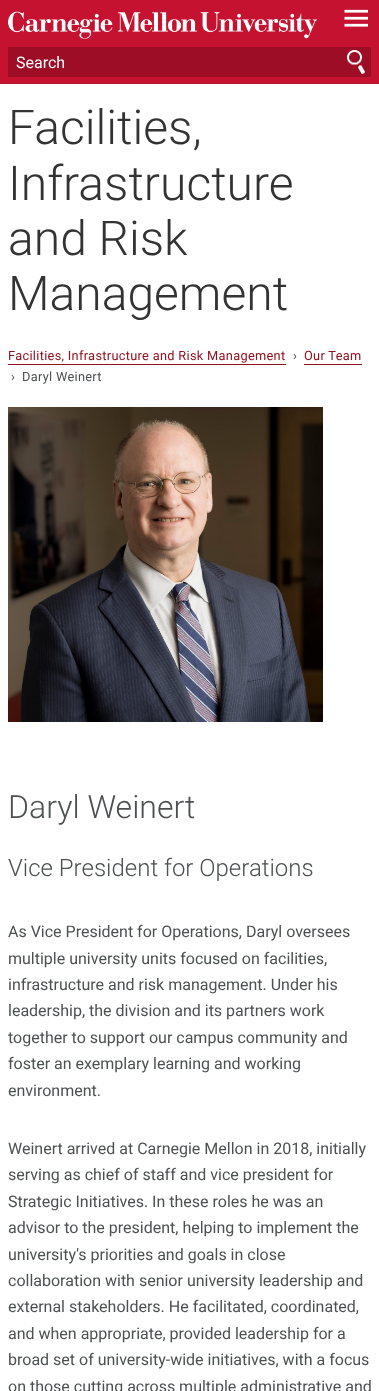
<svg xmlns="http://www.w3.org/2000/svg" xmlns:xlink="http://www.w3.org/1999/xlink" width="379" height="1391" viewBox="0 0 379 1391">
<style>
.cls-1{font:36px Roboto;letter-spacing:1px;fill:#ffffff}
.cls-2{font:16px Roboto;fill:#ffffff}
.cls-3{font:300 48px Roboto;fill:#333333}
.cls-4{font:12.8px Roboto;letter-spacing:0.3px;fill:#941120}
.cls-5{font:12.8px Roboto;letter-spacing:0.3px;fill:#4d5051}
.cls-6{font:300 32px Roboto;fill:#4d5051}
.cls-7{font:300 24px Roboto;fill:#4d5051}
.cls-8{font:16px Roboto;fill:#4d5051}
</style>
<rect width="100%" height="100%" fill="#ffffff"/>
<rect fill="#c41230" x="0" y="0" width="379" height="84"/>
<image xlink:href="image0.png" x="8" y="11" width="309" height="28"/>
<rect fill="#9d0e26" x="8" y="47" width="363" height="30"/>
<image xlink:href="image1.png" x="347" y="50" width="18" height="24"/>
<rect fill="#941120" x="8" y="364" width="278" height="1"/>
<rect fill="#941120" x="304" y="364" width="58" height="1"/>
<image xlink:href="image2.png" x="8" y="407" width="315" height="315"/>
<text class="cls-1"><tspan x="342" y="24">—</tspan><tspan x="342" y="31">—</tspan><tspan x="342" y="38">—</tspan></text>
<text class="cls-2" x="16" y="68">Search</text>
<text class="cls-3"><tspan x="8" y="144">Facilities,</tspan><tspan x="8" y="200">Infrastructure</tspan><tspan x="8" y="255">and Risk</tspan><tspan x="8" y="310">Management</tspan></text>
<text class="cls-4" x="8" y="360">Facilities, Infrastructure and Risk Management</text>
<text class="cls-5" x="293" y="360">›</text>
<text class="cls-4" x="304" y="360">Our Team</text>
<text class="cls-5" x="11" y="381">›</text>
<text class="cls-5" x="22" y="381">Daryl Weinert</text>
<text class="cls-6" x="8" y="818">Daryl Weinert</text>
<text class="cls-7" x="8" y="876">Vice President for Operations</text>
<text class="cls-8"><tspan x="8" y="937">As Vice President for Operations, Daryl oversees</tspan><tspan x="8" y="964">multiple university units focused on facilities,</tspan><tspan x="8" y="990">infrastructure and risk management. Under his</tspan><tspan x="8" y="1016">leadership, the division and its partners work</tspan><tspan x="8" y="1043">together to support our campus community and</tspan><tspan x="8" y="1069">foster an exemplary learning and working</tspan><tspan x="8" y="1096">environment.</tspan></text>
<text class="cls-8"><tspan x="8" y="1154">Weinert arrived at Carnegie Mellon in 2018, initially</tspan><tspan x="8" y="1180">serving as chief of staff and vice president for</tspan><tspan x="8" y="1207">Strategic Initiatives. In these roles he was an</tspan><tspan x="8" y="1233">advisor to the president, helping to implement the</tspan><tspan x="8" y="1260">university's priorities and goals in close</tspan><tspan x="8" y="1286">collaboration with senior university leadership and</tspan><tspan x="8" y="1312">external stakeholders. He facilitated, coordinated,</tspan><tspan x="8" y="1339">and when appropriate, provided leadership for a</tspan><tspan x="8" y="1365">broad set of university-wide initiatives, with a focus</tspan><tspan x="8" y="1392">on those cutting across multiple administrative and</tspan></text>
</svg>
